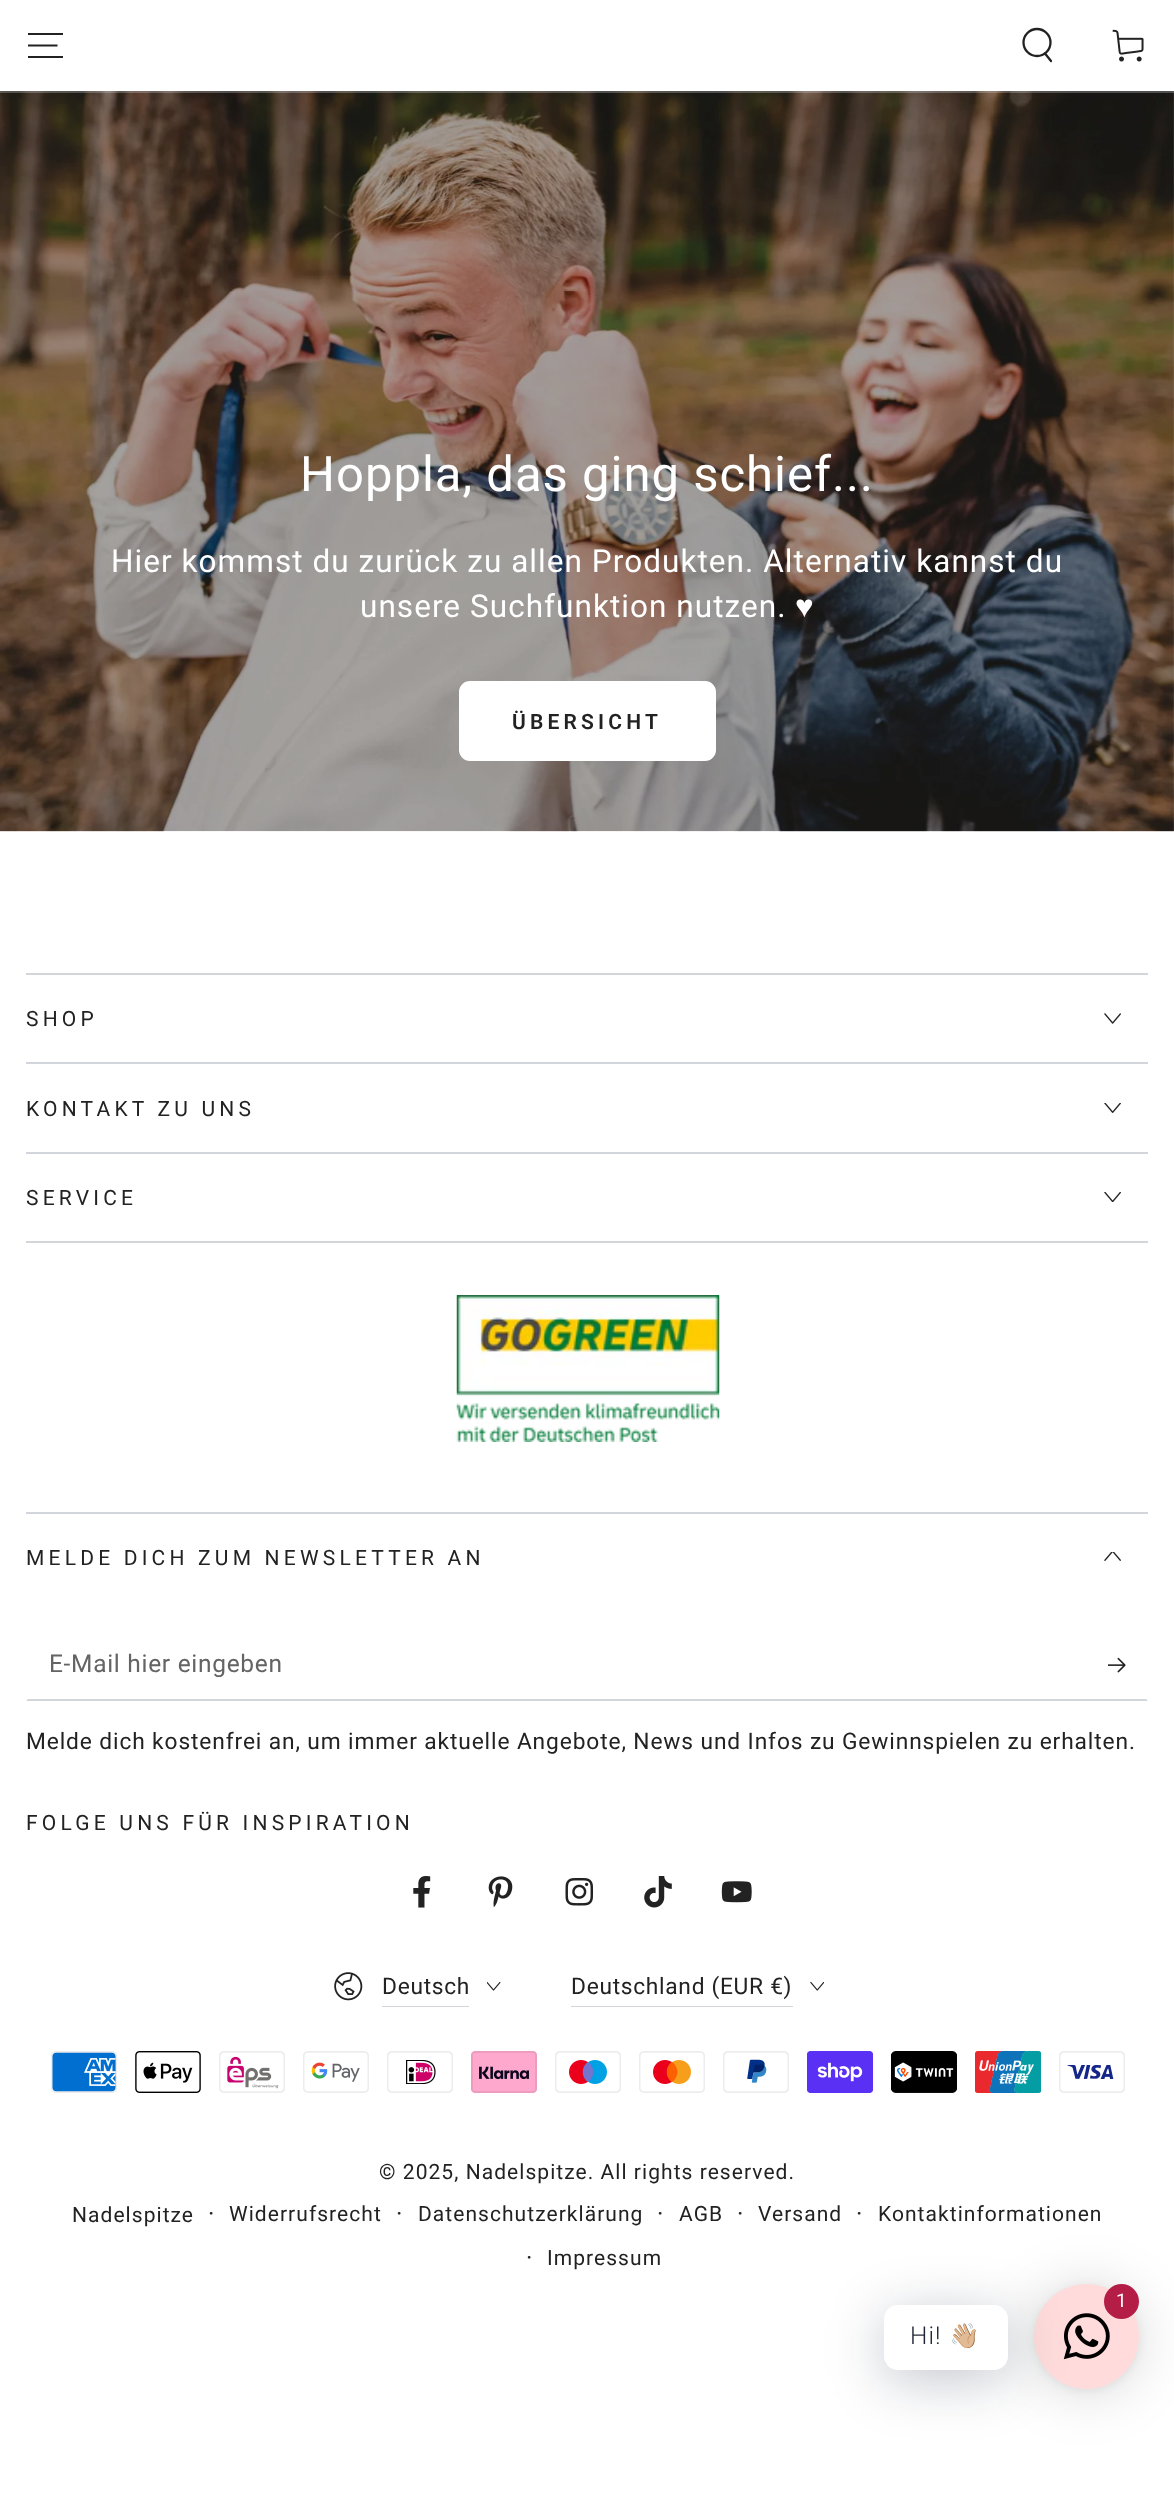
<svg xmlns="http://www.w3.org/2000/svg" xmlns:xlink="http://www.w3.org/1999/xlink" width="1174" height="2493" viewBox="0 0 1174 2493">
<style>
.cls-1{font:49px Roboto;letter-spacing:1px;fill:#ffffff}
.cls-2{font:31.5px Roboto;letter-spacing:1.05px;fill:#ffffff}
.cls-3{font:31.5px Liberation Sans;letter-spacing:1.05px;fill:#ffffff}
.cls-4{font:600 21px Roboto;letter-spacing:4.2px;fill:#222222}
.cls-5{font:21px Roboto;letter-spacing:4.2px;fill:#222222}
.cls-6{font:24.5px Roboto;letter-spacing:0.7px;fill:#646464}
.cls-7{font:22.75px Roboto;letter-spacing:0.88px;fill:#222222}
.cls-8{font:22.75px Roboto;letter-spacing:0.7px;fill:#222222}
.cls-9{font:21px Roboto;letter-spacing:1.05px;fill:#222222}
.cls-10{font:24.5px Roboto;letter-spacing:1.05px;fill:#222222}
.cls-11{font:19px Roboto;letter-spacing:1.05px;fill:#ffffff}
.cls-12{font:300 24.5px Roboto;letter-spacing:1.05px;fill:#1e2433}
.cls-13{font:24.5px Noto Color Emoji;letter-spacing:1.05px;fill:#1e2433}
</style>
<rect width="100%" height="100%" fill="#ffffff"/>
<image xlink:href="image1.png" x="0" y="91" width="1174" height="741"/>
<rect fill="#d2d5d9" fill-opacity="0.3" x="0" y="91" width="1174" height="2"/>
<path fill="none" stroke="#222222" stroke-width="2" d="M28 57H63M28 45.5H57.5M28 34H63"/>
<circle fill="none" stroke="#222222" stroke-width="2.3" cx="1037" cy="42.5" r="13.5"/>
<path fill="none" stroke="#222222" stroke-width="2.3" stroke-linecap="round" d="M1045 53.5L1051 61"/>
<image xlink:href="image0.png" x="1112" y="29" width="32" height="33"/>
<rect fill="#ffffff" stroke="#ffffff" stroke-width="2" x="460" y="682" width="255" height="78" rx="10"/>
<rect fill="#d2d5d9" x="26" y="973" width="1122" height="2"/>
<rect fill="#d2d5d9" x="26" y="1062" width="1122" height="2"/>
<image xlink:href="image2.png" x="1104" y="1013" width="17" height="11"/>
<rect fill="#d2d5d9" x="26" y="1152" width="1122" height="2"/>
<image xlink:href="image3.png" x="1104" y="1103" width="17" height="10"/>
<rect fill="#d2d5d9" x="26" y="1241" width="1122" height="2"/>
<image xlink:href="image4.png" x="1104" y="1192" width="17" height="10"/>
<rect fill="#d2d5d9" x="26" y="1512" width="1122" height="2"/>
<image xlink:href="image5.png" x="456" y="1295" width="264" height="147"/>
<image xlink:href="image6.png" x="1104" y="1552" width="17" height="9"/>
<path fill="#d2d5d9" d="M1148 1701H26L28 1699H1146Z"/>
<image xlink:href="image7.png" x="1108" y="1657" width="18" height="16"/>
<image xlink:href="image8.png" x="413" y="1876" width="18" height="32"/>
<image xlink:href="image9.png" x="488" y="1876" width="25" height="31"/>
<image xlink:href="image10.png" x="565" y="1877" width="29" height="29"/>
<image xlink:href="image11.png" x="644" y="1876" width="28" height="32"/>
<image xlink:href="image12.png" x="721" y="1881" width="31" height="22"/>
<image xlink:href="image13.png" x="334" y="1972" width="29" height="29"/>
<rect fill="#d2d5d9" x="382" y="2006" width="87" height="1"/>
<image xlink:href="image14.png" x="487" y="1981" width="14" height="10"/>
<rect fill="#d2d5d9" x="571" y="2006" width="222" height="1"/>
<image xlink:href="image15.png" x="810" y="1981" width="14" height="10"/>
<image xlink:href="image16.png" x="51" y="2051" width="66" height="42"/>
<image xlink:href="image17.png" x="135" y="2051" width="66" height="42"/>
<image xlink:href="image18.png" x="219" y="2051" width="66" height="42"/>
<image xlink:href="image19.png" x="303" y="2051" width="66" height="42"/>
<image xlink:href="image20.png" x="387" y="2051" width="66" height="42"/>
<image xlink:href="image21.png" x="471" y="2051" width="66" height="42"/>
<image xlink:href="image22.png" x="555" y="2051" width="66" height="42"/>
<image xlink:href="image23.png" x="639" y="2051" width="66" height="42"/>
<image xlink:href="image24.png" x="723" y="2051" width="66" height="42"/>
<image xlink:href="image25.png" x="807" y="2051" width="66" height="42"/>
<image xlink:href="image26.png" x="891" y="2051" width="66" height="42"/>
<image xlink:href="image27.png" x="975" y="2051" width="66" height="42"/>
<image xlink:href="image28.png" x="1059" y="2051" width="66" height="42"/>
<rect fill="#000000" fill-opacity="0.16" filter="blur(28px)" x="1034" y="2287" width="105" height="105" rx="52.5"/>
<rect fill="#000000" fill-opacity="0.06" filter="blur(5px)" x="1034" y="2286" width="105" height="105" rx="52.5"/>
<circle fill="#ffdcdb" cx="1086.5" cy="2336.5" r="52.5"/>
<rect fill="#00122e" fill-opacity="0.24" filter="blur(28px)" x="884" y="2315" width="124" height="65" rx="14"/>
<image xlink:href="image29.png" x="1063" y="2313" width="47" height="47"/>
<circle fill="#b41d46" cx="1121.5" cy="2301.5" r="17.5"/>
<rect fill="#ffffff" x="884" y="2305" width="124" height="65" rx="14"/>
<text class="cls-1" x="300" y="491">Hoppla, das ging schief...</text>
<text class="cls-2" x="111" y="572">Hier kommst du zurück zu allen Produkten. Alternativ kannst du</text>
<text class="cls-2" x="360" y="617">unsere Suchfunktion nutzen.</text>
<text class="cls-3" x="795" y="617">♥</text>
<text class="cls-4" x="512" y="729">ÜBERSICHT</text>
<text class="cls-5" x="26" y="1026">SHOP</text>
<text class="cls-5" x="26" y="1116">KONTAKT ZU UNS</text>
<text class="cls-5" x="26" y="1205">SERVICE</text>
<text class="cls-5" x="26" y="1565">MELDE DICH ZUM NEWSLETTER AN</text>
<text class="cls-6" x="49" y="1672">E-Mail hier eingeben</text>
<text class="cls-7" x="26" y="1749">Melde dich kostenfrei an, um immer aktuelle Angebote, News und Infos zu Gewinnspielen zu erhalten.</text>
<text class="cls-5" x="26" y="1830">FOLGE UNS FÜR INSPIRATION</text>
<text class="cls-8" x="382" y="1994">Deutsch</text>
<text class="cls-8" x="571" y="1994">Deutschland (EUR €)</text>
<text class="cls-9" x="379" y="2179">© 2025, Nadelspitze. All rights reserved.</text>
<text class="cls-9" x="72" y="2222">Nadelspitze</text>
<text class="cls-10" x="208" y="2222">·</text>
<text class="cls-9" x="229" y="2221">Widerrufsrecht</text>
<text class="cls-10" x="396" y="2222">·</text>
<text class="cls-9" x="418" y="2221">Datenschutzerklärung</text>
<text class="cls-10" x="657" y="2222">·</text>
<text class="cls-9" x="679" y="2221">AGB</text>
<text class="cls-10" x="737" y="2222">·</text>
<text class="cls-9" x="758" y="2221">Versand</text>
<text class="cls-10" x="856" y="2222">·</text>
<text class="cls-9" x="878" y="2221">Kontaktinformationen</text>
<text class="cls-10" x="526" y="2266">·</text>
<text class="cls-9" x="547" y="2265">Impressum</text>
<text class="cls-11" x="1116" y="2307">1</text>
<text class="cls-12" x="910" y="2344">Hi!</text>
<text class="cls-13" x="949" y="2344">👋🏼</text>
</svg>
